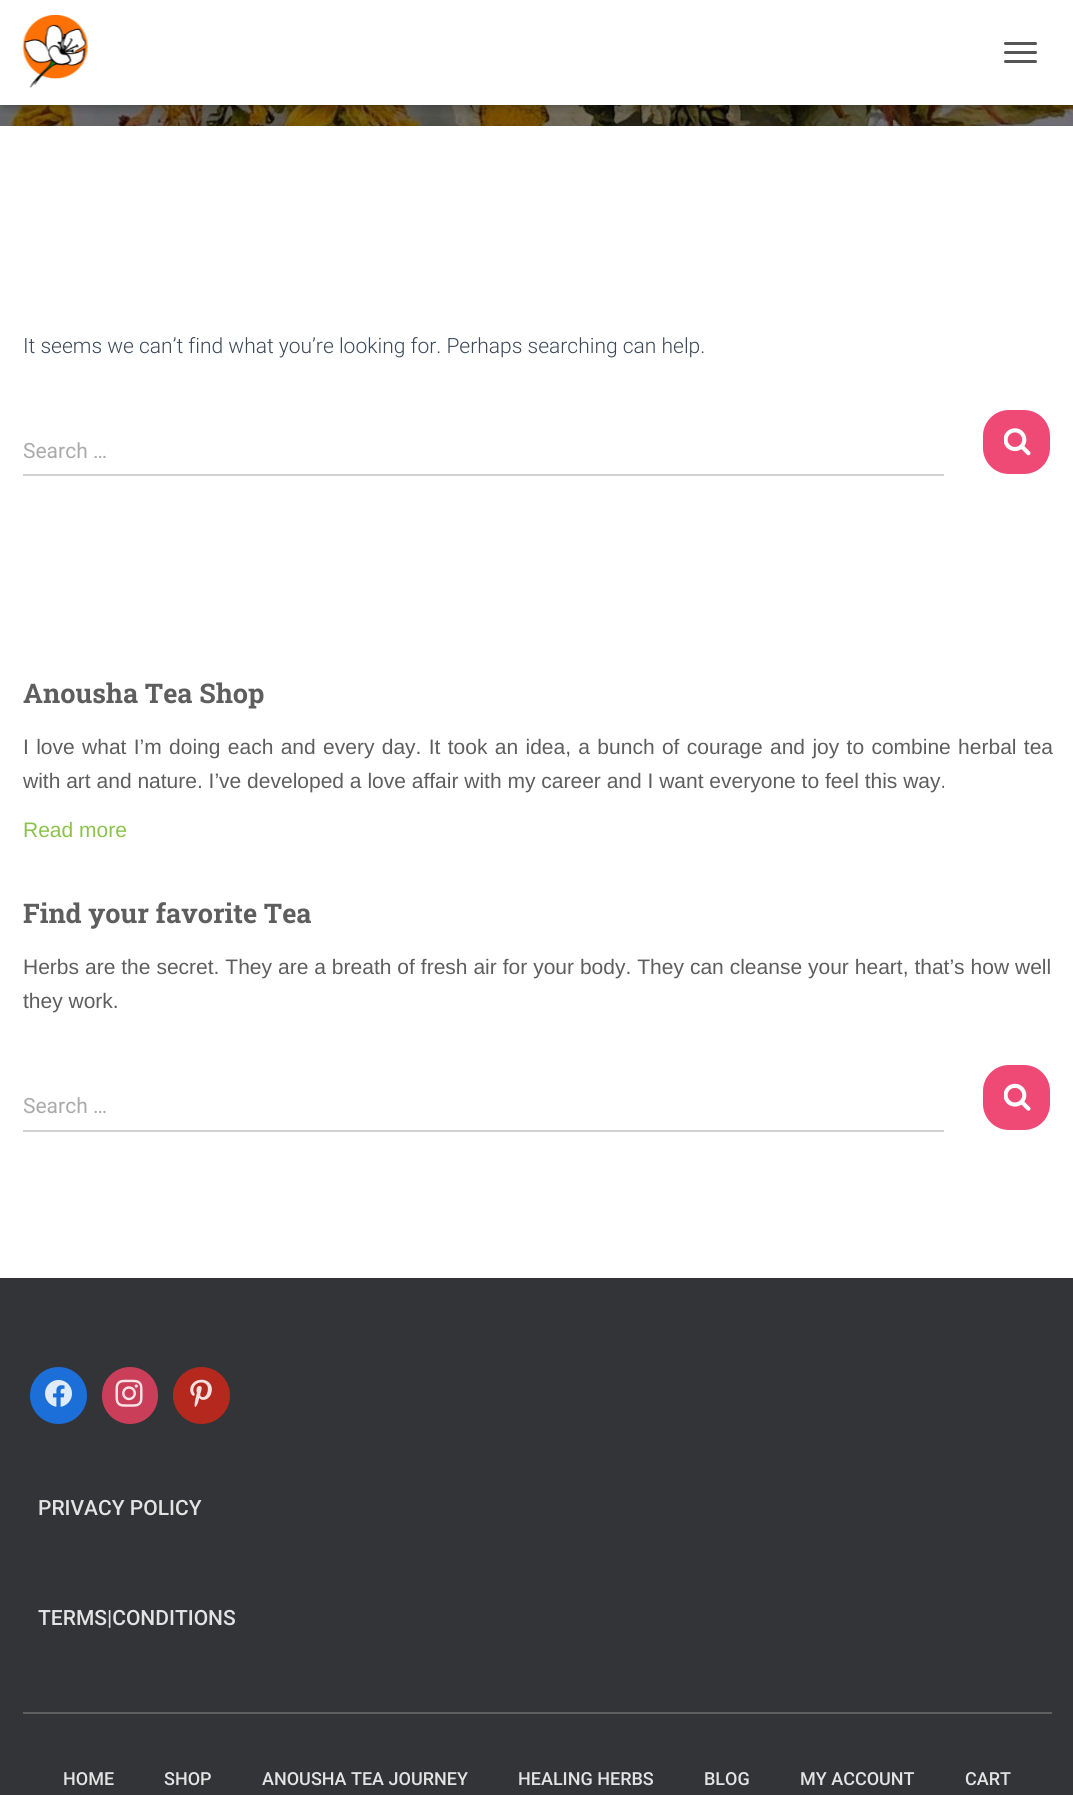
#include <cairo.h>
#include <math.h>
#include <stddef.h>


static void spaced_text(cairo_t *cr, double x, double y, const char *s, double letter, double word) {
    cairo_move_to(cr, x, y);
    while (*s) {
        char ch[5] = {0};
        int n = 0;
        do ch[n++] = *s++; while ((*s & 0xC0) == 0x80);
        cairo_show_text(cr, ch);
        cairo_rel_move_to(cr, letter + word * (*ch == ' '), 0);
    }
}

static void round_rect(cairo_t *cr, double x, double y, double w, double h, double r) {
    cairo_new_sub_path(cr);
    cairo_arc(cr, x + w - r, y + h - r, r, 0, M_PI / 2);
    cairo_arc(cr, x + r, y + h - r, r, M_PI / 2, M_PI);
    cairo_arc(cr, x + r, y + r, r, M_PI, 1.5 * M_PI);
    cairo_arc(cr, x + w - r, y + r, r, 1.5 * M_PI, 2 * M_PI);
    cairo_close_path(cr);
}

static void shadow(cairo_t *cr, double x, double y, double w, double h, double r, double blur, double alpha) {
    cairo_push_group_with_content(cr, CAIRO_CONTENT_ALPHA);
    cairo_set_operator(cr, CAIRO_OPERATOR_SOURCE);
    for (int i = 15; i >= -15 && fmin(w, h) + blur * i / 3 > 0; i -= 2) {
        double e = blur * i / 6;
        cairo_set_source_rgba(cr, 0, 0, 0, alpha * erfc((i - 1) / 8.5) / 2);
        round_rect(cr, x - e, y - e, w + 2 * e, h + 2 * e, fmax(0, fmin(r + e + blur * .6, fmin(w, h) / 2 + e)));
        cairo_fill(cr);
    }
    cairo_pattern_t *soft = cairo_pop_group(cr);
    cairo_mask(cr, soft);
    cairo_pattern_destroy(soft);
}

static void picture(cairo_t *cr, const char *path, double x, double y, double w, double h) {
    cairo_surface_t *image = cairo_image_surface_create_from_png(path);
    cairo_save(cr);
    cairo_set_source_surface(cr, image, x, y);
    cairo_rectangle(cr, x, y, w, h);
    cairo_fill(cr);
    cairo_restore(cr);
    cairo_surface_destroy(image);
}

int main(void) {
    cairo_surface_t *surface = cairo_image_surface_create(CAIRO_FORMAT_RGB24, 1073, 1795);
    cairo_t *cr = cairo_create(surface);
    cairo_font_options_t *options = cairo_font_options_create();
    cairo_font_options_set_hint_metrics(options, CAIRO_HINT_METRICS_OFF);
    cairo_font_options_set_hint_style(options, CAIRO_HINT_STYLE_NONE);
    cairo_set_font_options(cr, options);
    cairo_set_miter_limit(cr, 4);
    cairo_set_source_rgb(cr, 1, 1, 1);
    cairo_paint(cr);
    picture(cr, "img2.png", 0, 105, 1073, 21);
    cairo_set_source_rgb(cr, 0, 0, 0);
    shadow(cr, 3, 9, 1068, 99, 0, 4, 0.1);
    shadow(cr, -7, 128, 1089, 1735, 0, 22.5, 0.12);
    cairo_set_source_rgb(cr, 1, 1, 1);
    cairo_rectangle(cr, 0, 126, 1073, 1152);
    cairo_fill(cr);
    cairo_set_source_rgb(cr, 0, 0, 0);
    shadow(cr, 0, 2, 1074, 105, 0, 7.5, 0.12);
    shadow(cr, 9, 11, 1056, 87, 0, 7.5, 0.42);
    cairo_set_source_rgb(cr, 1, 1, 1);
    cairo_rectangle(cr, 0, 0, 1073, 105);
    cairo_fill(cr);
    picture(cr, "img1.png", 22, 15, 66, 73);
    cairo_set_source_rgb(cr, 0.333, 0.333, 0.333);
    round_rect(cr, 1004, 42, 33, 3, 1.5);
    cairo_fill(cr);
    round_rect(cr, 1004, 51, 33, 3, 1.5);
    cairo_fill(cr);
    round_rect(cr, 1004, 60, 33, 3, 1.5);
    cairo_fill(cr);
    cairo_select_font_face(cr, "Roboto Light", CAIRO_FONT_SLANT_NORMAL, CAIRO_FONT_WEIGHT_NORMAL);
    cairo_set_font_size(cr, 21);
    cairo_set_source_rgb(cr, 0.235, 0.282, 0.345);
    cairo_move_to(cr, 23, 353);
    cairo_show_text(cr, "It seems we can’t find what you’re looking for. Perhaps searching can help.");
    cairo_select_font_face(cr, "Roboto", CAIRO_FONT_SLANT_NORMAL, CAIRO_FONT_WEIGHT_NORMAL);
    cairo_set_source_rgb(cr, 0.667, 0.667, 0.667);
    cairo_move_to(cr, 23, 458);
    cairo_show_text(cr, "Search …");
    cairo_set_source_rgb(cr, 0.824, 0.824, 0.824);
    cairo_rectangle(cr, 23, 474, 921, 2);
    cairo_fill(cr);
    cairo_set_source_rgb(cr, 0.937, 0.29, 0.459);
    round_rect(cr, 983, 410, 67, 64, 26);
    cairo_fill(cr);
    picture(cr, "img3.png", 1004, 428, 27, 28);
    cairo_select_font_face(cr, "Roboto Slab", CAIRO_FONT_SLANT_NORMAL, CAIRO_FONT_WEIGHT_BOLD);
    cairo_set_font_size(cr, 27);
    cairo_set_source_rgb(cr, 0.369, 0.369, 0.369);
    cairo_move_to(cr, 23, 703);
    cairo_show_text(cr, "Anousha Tea Shop");
    cairo_select_font_face(cr, "Liberation Sans", CAIRO_FONT_SLANT_NORMAL, CAIRO_FONT_WEIGHT_NORMAL);
    cairo_set_font_size(cr, 21);
    spaced_text(cr, 23, 754, "I love what I’m doing each and every day. It took an idea, a bunch of courage and joy to combine herbal tea", 0, 1.5);
    cairo_move_to(cr, 23, 788);
    cairo_show_text(cr, "with art and nature. I’ve developed a love affair with my career and I want everyone to feel this way.");
    cairo_set_source_rgb(cr, 0.545, 0.765, 0.29);
    cairo_move_to(cr, 23, 837);
    cairo_show_text(cr, "Read more");
    cairo_select_font_face(cr, "Roboto Slab", CAIRO_FONT_SLANT_NORMAL, CAIRO_FONT_WEIGHT_BOLD);
    cairo_set_font_size(cr, 27);
    cairo_set_source_rgb(cr, 0.369, 0.369, 0.369);
    cairo_move_to(cr, 23, 923);
    cairo_show_text(cr, "Find your favorite Tea");
    cairo_select_font_face(cr, "Liberation Sans", CAIRO_FONT_SLANT_NORMAL, CAIRO_FONT_WEIGHT_NORMAL);
    cairo_set_font_size(cr, 21);
    spaced_text(cr, 23, 974, "Herbs are the secret. They are a breath of fresh air for your body. They can cleanse your heart, that’s how well", 0, 0.1);
    cairo_move_to(cr, 23, 1008);
    cairo_show_text(cr, "they work.");
    cairo_select_font_face(cr, "Roboto", CAIRO_FONT_SLANT_NORMAL, CAIRO_FONT_WEIGHT_NORMAL);
    cairo_set_source_rgb(cr, 0.667, 0.667, 0.667);
    cairo_move_to(cr, 23, 1113);
    cairo_show_text(cr, "Search …");
    cairo_set_source_rgb(cr, 0.824, 0.824, 0.824);
    cairo_rectangle(cr, 23, 1130, 921, 2);
    cairo_fill(cr);
    cairo_set_source_rgb(cr, 0.937, 0.29, 0.459);
    round_rect(cr, 983, 1065, 67, 65, 26);
    cairo_fill(cr);
    picture(cr, "img4.png", 1004, 1083, 27, 28);
    cairo_set_source_rgb(cr, 0.196, 0.204, 0.216);
    cairo_rectangle(cr, 0, 1278, 1073, 517);
    cairo_fill(cr);
    cairo_set_source_rgb(cr, 0.11, 0.431, 0.847);
    cairo_arc(cr, 58.5, 1395.5, 28.5, 0, 2 * M_PI);
    cairo_fill(cr);
    picture(cr, "img5.png", 45, 1380, 27, 27);
    cairo_set_source_rgb(cr, 0.796, 0.243, 0.349);
    round_rect(cr, 102, 1367, 56, 57, 28);
    cairo_fill(cr);
    picture(cr, "img6.png", 115, 1379, 28, 28);
    cairo_set_source_rgb(cr, 0.706, 0.157, 0.114);
    cairo_arc(cr, 201.5, 1395.5, 28.5, 0, 2 * M_PI);
    cairo_fill(cr);
    picture(cr, "img7.png", 190, 1379, 22, 28);
    cairo_select_font_face(cr, "Roboto Medium", CAIRO_FONT_SLANT_NORMAL, CAIRO_FONT_WEIGHT_NORMAL);
    cairo_set_source_rgb(cr, 0.886, 0.89, 0.89);
    cairo_move_to(cr, 38, 1515);
    cairo_show_text(cr, "PRIVACY POLICY");
    cairo_move_to(cr, 38, 1625);
    cairo_show_text(cr, "TERMS|CONDITIONS");
    cairo_set_source_rgb(cr, 0.369, 0.369, 0.369);
    cairo_rectangle(cr, 23, 1712, 1029, 2);
    cairo_fill(cr);
    cairo_set_font_size(cr, 18);
    cairo_set_source_rgb(cr, 0.886, 0.89, 0.89);
    cairo_move_to(cr, 63, 1785);
    cairo_show_text(cr, "HOME");
    cairo_move_to(cr, 164, 1785);
    cairo_show_text(cr, "SHOP");
    cairo_move_to(cr, 262, 1785);
    cairo_show_text(cr, "ANOUSHA TEA JOURNEY");
    cairo_move_to(cr, 518, 1785);
    cairo_show_text(cr, "HEALING HERBS");
    cairo_move_to(cr, 704, 1785);
    cairo_show_text(cr, "BLOG");
    cairo_move_to(cr, 800, 1785);
    cairo_show_text(cr, "MY ACCOUNT");
    cairo_move_to(cr, 965, 1785);
    cairo_show_text(cr, "CART");
    cairo_surface_write_to_png(surface, "page.png");
    cairo_font_options_destroy(options);
    cairo_destroy(cr);
    cairo_surface_destroy(surface);
    return 0;
}
